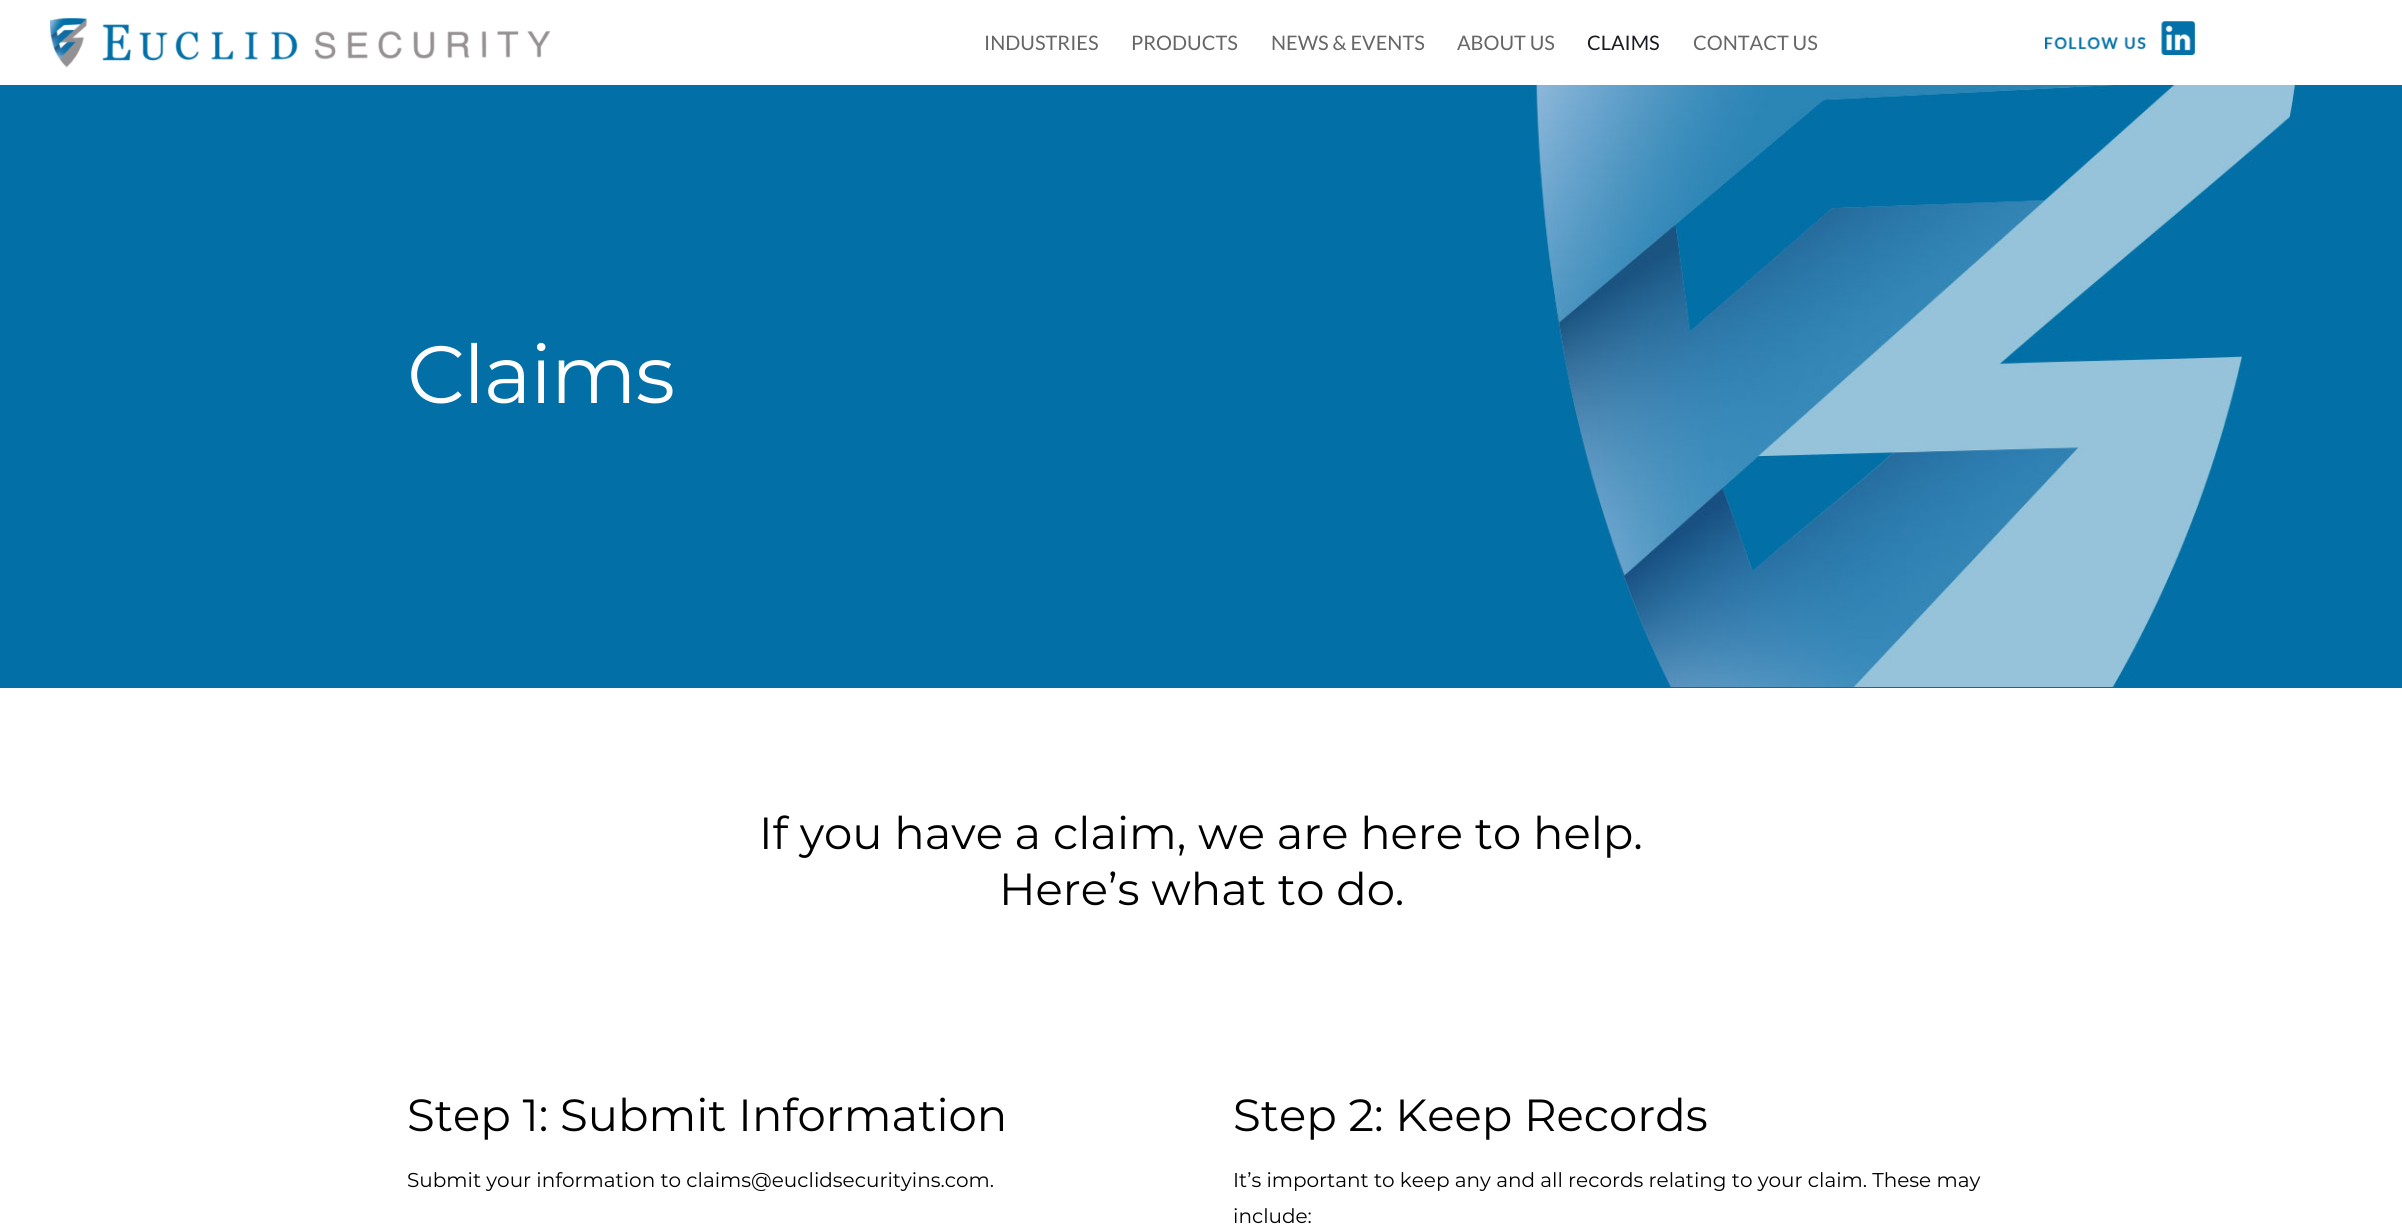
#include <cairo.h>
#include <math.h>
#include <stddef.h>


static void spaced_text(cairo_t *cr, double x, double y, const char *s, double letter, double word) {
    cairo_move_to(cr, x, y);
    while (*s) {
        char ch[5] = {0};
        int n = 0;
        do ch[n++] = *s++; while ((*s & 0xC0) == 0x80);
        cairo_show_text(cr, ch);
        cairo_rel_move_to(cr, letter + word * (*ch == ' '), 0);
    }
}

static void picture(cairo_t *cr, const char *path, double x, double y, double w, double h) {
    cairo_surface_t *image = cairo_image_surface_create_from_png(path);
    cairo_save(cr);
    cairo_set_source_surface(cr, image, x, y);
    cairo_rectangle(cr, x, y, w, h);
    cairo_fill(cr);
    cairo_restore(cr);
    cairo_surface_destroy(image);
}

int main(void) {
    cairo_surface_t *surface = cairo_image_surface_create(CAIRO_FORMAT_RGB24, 2402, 1229);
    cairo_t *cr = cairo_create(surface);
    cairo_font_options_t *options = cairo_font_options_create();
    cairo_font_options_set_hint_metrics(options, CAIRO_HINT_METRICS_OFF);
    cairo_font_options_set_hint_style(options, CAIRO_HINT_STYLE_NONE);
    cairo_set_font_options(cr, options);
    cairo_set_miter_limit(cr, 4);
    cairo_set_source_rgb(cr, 1, 1, 1);
    cairo_paint(cr);
    picture(cr, "img1.png", 50, 18, 500, 50);
    cairo_select_font_face(cr, "Lato", CAIRO_FONT_SLANT_NORMAL, CAIRO_FONT_WEIGHT_NORMAL);
    cairo_set_font_size(cr, 20);
    cairo_set_source_rgb(cr, 0.4, 0.4, 0.4);
    cairo_move_to(cr, 984, 50);
    cairo_show_text(cr, "INDUSTRIES");
    cairo_move_to(cr, 1131, 50);
    cairo_show_text(cr, "PRODUCTS");
    cairo_move_to(cr, 1271, 50);
    cairo_show_text(cr, "NEWS & EVENTS");
    cairo_move_to(cr, 1457, 50);
    cairo_show_text(cr, "ABOUT US");
    cairo_set_source_rgb(cr, 0.094, 0.106, 0.125);
    cairo_move_to(cr, 1587, 50);
    cairo_show_text(cr, "CLAIMS");
    cairo_set_source_rgb(cr, 0.4, 0.4, 0.4);
    cairo_move_to(cr, 1693, 50);
    cairo_show_text(cr, "CONTACT US");
    picture(cr, "img2.png", 2045, 21, 150, 34);
    cairo_set_source_rgb(cr, 0.008, 0.439, 0.651);
    cairo_rectangle(cr, 0, 687, 2402, 1);
    cairo_fill(cr);
    picture(cr, "img3.png", 0, 85, 2402, 602);
    cairo_select_font_face(cr, "Montserrat", CAIRO_FONT_SLANT_NORMAL, CAIRO_FONT_WEIGHT_NORMAL);
    cairo_set_font_size(cr, 81);
    cairo_set_source_rgb(cr, 1, 1, 1);
    spaced_text(cr, 407, 403, "Claims", -1.25, 0);
    cairo_set_font_size(cr, 45);
    cairo_set_source_rgb(cr, 0, 0, 0);
    cairo_move_to(cr, 759, 849);
    cairo_show_text(cr, "If you have a claim, we are here to help.");
    cairo_move_to(cr, 999, 905);
    cairo_show_text(cr, "Here’s what to do.");
    cairo_move_to(cr, 407, 1131);
    cairo_show_text(cr, "Step 1: Submit Information");
    cairo_set_font_size(cr, 20);
    cairo_move_to(cr, 407, 1187);
    cairo_show_text(cr, "Submit your information to claims@euclidsecurityins.com.");
    cairo_set_font_size(cr, 45);
    cairo_move_to(cr, 1233, 1131);
    cairo_show_text(cr, "Step 2: Keep Records");
    cairo_set_font_size(cr, 20);
    cairo_move_to(cr, 1233, 1187);
    cairo_show_text(cr, "It’s important to keep any and all records relating to your claim. These may");
    cairo_move_to(cr, 1233, 1223);
    cairo_show_text(cr, "include:");
    cairo_surface_write_to_png(surface, "page.png");
    cairo_font_options_destroy(options);
    cairo_destroy(cr);
    cairo_surface_destroy(surface);
    return 0;
}
